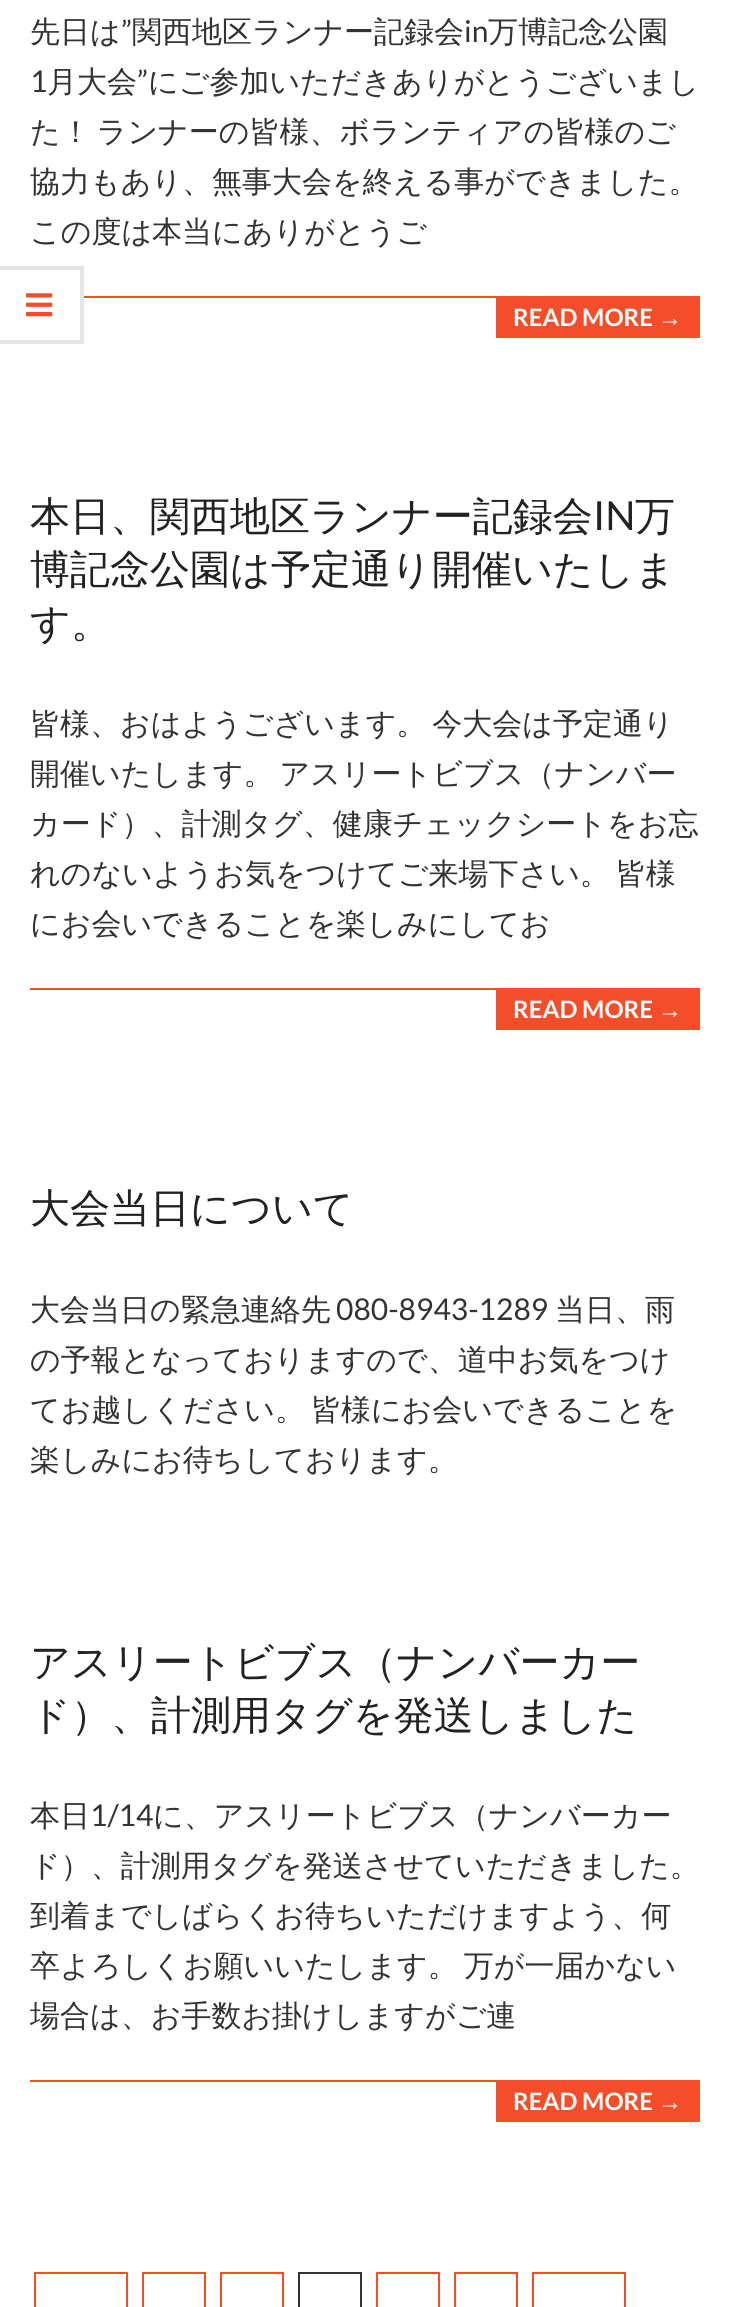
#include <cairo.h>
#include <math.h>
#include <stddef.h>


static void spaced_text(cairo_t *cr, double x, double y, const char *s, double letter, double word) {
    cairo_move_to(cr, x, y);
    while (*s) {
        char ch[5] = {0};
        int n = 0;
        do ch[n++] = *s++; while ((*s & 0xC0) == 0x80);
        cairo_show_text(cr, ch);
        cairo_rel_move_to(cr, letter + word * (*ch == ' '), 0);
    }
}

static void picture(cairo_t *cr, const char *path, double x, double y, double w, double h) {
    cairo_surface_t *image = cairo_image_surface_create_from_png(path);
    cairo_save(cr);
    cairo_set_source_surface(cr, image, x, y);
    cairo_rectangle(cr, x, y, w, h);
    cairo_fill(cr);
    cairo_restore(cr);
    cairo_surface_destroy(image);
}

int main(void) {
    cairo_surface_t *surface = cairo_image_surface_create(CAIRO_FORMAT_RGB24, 729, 2307);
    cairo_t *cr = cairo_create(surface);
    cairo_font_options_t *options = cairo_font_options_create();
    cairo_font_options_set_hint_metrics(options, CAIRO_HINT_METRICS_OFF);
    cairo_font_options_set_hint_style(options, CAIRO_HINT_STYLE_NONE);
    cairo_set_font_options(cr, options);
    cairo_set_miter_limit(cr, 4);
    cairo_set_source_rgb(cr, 1, 1, 1);
    cairo_paint(cr);
    cairo_select_font_face(cr, "WenQuanYi Zen Hei Medium", CAIRO_FONT_SLANT_NORMAL, CAIRO_FONT_WEIGHT_NORMAL);
    cairo_set_font_size(cr, 30);
    cairo_set_source_rgb(cr, 0.2, 0.2, 0.2);
    cairo_move_to(cr, 30, 42);
    cairo_show_text(cr, "先日は");
    cairo_select_font_face(cr, "Lato", CAIRO_FONT_SLANT_NORMAL, CAIRO_FONT_WEIGHT_NORMAL);
    cairo_move_to(cr, 121, 42);
    cairo_show_text(cr, "”");
    cairo_select_font_face(cr, "WenQuanYi Zen Hei Medium", CAIRO_FONT_SLANT_NORMAL, CAIRO_FONT_WEIGHT_NORMAL);
    cairo_move_to(cr, 132, 42);
    cairo_show_text(cr, "関西地区ランナー記録会");
    cairo_select_font_face(cr, "Lato", CAIRO_FONT_SLANT_NORMAL, CAIRO_FONT_WEIGHT_NORMAL);
    cairo_move_to(cr, 464, 42);
    cairo_show_text(cr, "in");
    cairo_select_font_face(cr, "WenQuanYi Zen Hei Medium", CAIRO_FONT_SLANT_NORMAL, CAIRO_FONT_WEIGHT_NORMAL);
    cairo_move_to(cr, 488, 42);
    cairo_show_text(cr, "万博記念公園");
    cairo_select_font_face(cr, "Lato", CAIRO_FONT_SLANT_NORMAL, CAIRO_FONT_WEIGHT_NORMAL);
    cairo_move_to(cr, 30, 92);
    cairo_show_text(cr, "1");
    cairo_select_font_face(cr, "WenQuanYi Zen Hei Medium", CAIRO_FONT_SLANT_NORMAL, CAIRO_FONT_WEIGHT_NORMAL);
    cairo_move_to(cr, 47, 92);
    cairo_show_text(cr, "月大会");
    cairo_select_font_face(cr, "Lato", CAIRO_FONT_SLANT_NORMAL, CAIRO_FONT_WEIGHT_NORMAL);
    cairo_move_to(cr, 137, 92);
    cairo_show_text(cr, "”");
    cairo_select_font_face(cr, "WenQuanYi Zen Hei Medium", CAIRO_FONT_SLANT_NORMAL, CAIRO_FONT_WEIGHT_NORMAL);
    cairo_move_to(cr, 148, 92);
    cairo_show_text(cr, "にご参加いただきありがとうございまし");
    spaced_text(cr, 30, 142, "た！ ランナーの皆様、ボランティアの皆様のご", 0, -3);
    cairo_move_to(cr, 30, 192);
    cairo_show_text(cr, "協力もあり、無事大会を終える事ができました。");
    cairo_move_to(cr, 30, 242);
    cairo_show_text(cr, "この度は本当にありがとうご");
    cairo_set_source_rgb(cr, 0.953, 0.306, 0.161);
    cairo_rectangle(cr, 84, 296, 616, 2);
    cairo_fill(cr);
    cairo_rectangle(cr, 496, 298, 204, 40);
    cairo_fill(cr);
    cairo_select_font_face(cr, "Lato", CAIRO_FONT_SLANT_NORMAL, CAIRO_FONT_WEIGHT_BOLD);
    cairo_set_font_size(cr, 24);
    cairo_set_source_rgb(cr, 1, 1, 1);
    cairo_move_to(cr, 513, 326);
    cairo_show_text(cr, "READ MORE");
    cairo_select_font_face(cr, "Liberation Sans", CAIRO_FONT_SLANT_NORMAL, CAIRO_FONT_WEIGHT_BOLD);
    cairo_move_to(cr, 658, 326);
    cairo_show_text(cr, "→");
    cairo_select_font_face(cr, "WenQuanYi Zen Hei Medium", CAIRO_FONT_SLANT_NORMAL, CAIRO_FONT_WEIGHT_NORMAL);
    cairo_set_font_size(cr, 40);
    cairo_set_source_rgb(cr, 0.133, 0.133, 0.133);
    cairo_move_to(cr, 30, 530);
    cairo_show_text(cr, "本日、関西地区ランナー記録会");
    cairo_select_font_face(cr, "Lato", CAIRO_FONT_SLANT_NORMAL, CAIRO_FONT_WEIGHT_NORMAL);
    cairo_move_to(cr, 593, 530);
    cairo_show_text(cr, "IN");
    cairo_select_font_face(cr, "WenQuanYi Zen Hei Medium", CAIRO_FONT_SLANT_NORMAL, CAIRO_FONT_WEIGHT_NORMAL);
    cairo_move_to(cr, 635, 530);
    cairo_show_text(cr, "万");
    cairo_move_to(cr, 30, 583);
    cairo_show_text(cr, "博記念公園は予定通り開催いたしま");
    cairo_move_to(cr, 30, 637);
    cairo_show_text(cr, "す。");
    cairo_set_font_size(cr, 30);
    cairo_set_source_rgb(cr, 0.2, 0.2, 0.2);
    spaced_text(cr, 30, 734, "皆様、おはようございます。 今大会は予定通り", 0, -3);
    spaced_text(cr, 30, 784, "開催いたします。 アスリートビブス（ナンバー", 0, -3);
    cairo_move_to(cr, 30, 834);
    cairo_show_text(cr, "カード）、計測タグ、健康チェックシートをお忘");
    spaced_text(cr, 30, 884, "れのないようお気をつけてご来場下さい。 皆様", 0, -3);
    cairo_move_to(cr, 30, 934);
    cairo_show_text(cr, "にお会いできることを楽しみにしてお");
    cairo_set_source_rgb(cr, 0.953, 0.306, 0.161);
    cairo_rectangle(cr, 30, 988, 670, 2);
    cairo_fill(cr);
    cairo_rectangle(cr, 496, 990, 204, 40);
    cairo_fill(cr);
    cairo_select_font_face(cr, "Lato", CAIRO_FONT_SLANT_NORMAL, CAIRO_FONT_WEIGHT_BOLD);
    cairo_set_font_size(cr, 24);
    cairo_set_source_rgb(cr, 1, 1, 1);
    cairo_move_to(cr, 513, 1018);
    cairo_show_text(cr, "READ MORE");
    cairo_select_font_face(cr, "Liberation Sans", CAIRO_FONT_SLANT_NORMAL, CAIRO_FONT_WEIGHT_BOLD);
    cairo_move_to(cr, 658, 1018);
    cairo_show_text(cr, "→");
    cairo_select_font_face(cr, "WenQuanYi Zen Hei Medium", CAIRO_FONT_SLANT_NORMAL, CAIRO_FONT_WEIGHT_NORMAL);
    cairo_set_font_size(cr, 40);
    cairo_set_source_rgb(cr, 0.133, 0.133, 0.133);
    cairo_move_to(cr, 30, 1222);
    cairo_show_text(cr, "大会当日について");
    cairo_set_font_size(cr, 30);
    cairo_set_source_rgb(cr, 0.2, 0.2, 0.2);
    cairo_move_to(cr, 30, 1320);
    cairo_show_text(cr, "大会当日の緊急連絡先");
    cairo_select_font_face(cr, "Lato", CAIRO_FONT_SLANT_NORMAL, CAIRO_FONT_WEIGHT_NORMAL);
    cairo_move_to(cr, 336, 1320);
    cairo_show_text(cr, "080-8943-1289");
    cairo_select_font_face(cr, "WenQuanYi Zen Hei Medium", CAIRO_FONT_SLANT_NORMAL, CAIRO_FONT_WEIGHT_NORMAL);
    cairo_move_to(cr, 555, 1320);
    cairo_show_text(cr, "当日、雨");
    cairo_move_to(cr, 30, 1370);
    cairo_show_text(cr, "の予報となっておりますので、道中お気をつけ");
    spaced_text(cr, 30, 1420, "てお越しください。 皆様にお会いできることを", 0, -3);
    cairo_move_to(cr, 30, 1470);
    cairo_show_text(cr, "楽しみにお待ちしております。");
    cairo_set_font_size(cr, 40);
    cairo_set_source_rgb(cr, 0.133, 0.133, 0.133);
    cairo_move_to(cr, 30, 1676);
    cairo_show_text(cr, "アスリートビブス（ナンバーカー");
    cairo_move_to(cr, 30, 1729);
    cairo_show_text(cr, "ド）、計測用タグを発送しました");
    cairo_set_font_size(cr, 30);
    cairo_set_source_rgb(cr, 0.2, 0.2, 0.2);
    cairo_move_to(cr, 30, 1826);
    cairo_show_text(cr, "本日");
    cairo_select_font_face(cr, "Lato", CAIRO_FONT_SLANT_NORMAL, CAIRO_FONT_WEIGHT_NORMAL);
    cairo_move_to(cr, 90, 1826);
    cairo_show_text(cr, "1/14");
    cairo_select_font_face(cr, "WenQuanYi Zen Hei Medium", CAIRO_FONT_SLANT_NORMAL, CAIRO_FONT_WEIGHT_NORMAL);
    cairo_move_to(cr, 153, 1826);
    cairo_show_text(cr, "に、アスリートビブス（ナンバーカー");
    cairo_move_to(cr, 30, 1876);
    cairo_show_text(cr, "ド）、計測用タグを発送させていただきました。");
    cairo_move_to(cr, 30, 1926);
    cairo_show_text(cr, "到着までしばらくお待ちいただけますよう、何");
    spaced_text(cr, 30, 1976, "卒よろしくお願いいたします。 万が一届かない", 0, -3);
    cairo_move_to(cr, 30, 2026);
    cairo_show_text(cr, "場合は、お手数お掛けしますがご連");
    cairo_set_source_rgb(cr, 0.953, 0.306, 0.161);
    cairo_rectangle(cr, 30, 2080, 670, 2);
    cairo_fill(cr);
    cairo_rectangle(cr, 496, 2082, 204, 40);
    cairo_fill(cr);
    cairo_select_font_face(cr, "Lato", CAIRO_FONT_SLANT_NORMAL, CAIRO_FONT_WEIGHT_BOLD);
    cairo_set_font_size(cr, 24);
    cairo_set_source_rgb(cr, 1, 1, 1);
    cairo_move_to(cr, 513, 2110);
    cairo_show_text(cr, "READ MORE");
    cairo_select_font_face(cr, "Liberation Sans", CAIRO_FONT_SLANT_NORMAL, CAIRO_FONT_WEIGHT_BOLD);
    cairo_move_to(cr, 658, 2110);
    cairo_show_text(cr, "→");
    cairo_rectangle(cr, 35, 2273, 92, 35);
    cairo_set_source_rgb(cr, 0.953, 0.306, 0.161);
    cairo_stroke(cr);
    cairo_rectangle(cr, 143, 2273, 62, 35);
    cairo_stroke(cr);
    cairo_rectangle(cr, 221, 2273, 62, 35);
    cairo_stroke(cr);
    cairo_rectangle(cr, 299, 2273, 62, 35);
    cairo_set_source_rgb(cr, 0.2, 0.2, 0.2);
    cairo_stroke(cr);
    cairo_rectangle(cr, 377, 2273, 62, 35);
    cairo_set_source_rgb(cr, 0.953, 0.306, 0.161);
    cairo_stroke(cr);
    cairo_rectangle(cr, 455, 2273, 62, 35);
    cairo_stroke(cr);
    cairo_rectangle(cr, 533, 2273, 92, 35);
    cairo_stroke(cr);
    cairo_set_source_rgb(cr, 0.902, 0.902, 0.902);
    cairo_new_path(cr);
    cairo_move_to(cr, 0, 266);
    cairo_line_to(cr, 84, 266);
    cairo_line_to(cr, 80, 270);
    cairo_line_to(cr, 0, 270);
    cairo_close_path(cr);
    cairo_fill(cr);
    cairo_set_source_rgba(cr, 0, 0, 0, 0.1);
    cairo_new_path(cr);
    cairo_move_to(cr, 84, 266);
    cairo_line_to(cr, 84, 344);
    cairo_line_to(cr, 80, 340);
    cairo_line_to(cr, 80, 270);
    cairo_close_path(cr);
    cairo_fill(cr);
    cairo_new_path(cr);
    cairo_move_to(cr, 84, 344);
    cairo_line_to(cr, 0, 344);
    cairo_line_to(cr, 0, 340);
    cairo_line_to(cr, 80, 340);
    cairo_close_path(cr);
    cairo_fill(cr);
    picture(cr, "img1.png", 26, 293, 27, 24);
    cairo_surface_write_to_png(surface, "page.png");
    cairo_font_options_destroy(options);
    cairo_destroy(cr);
    cairo_surface_destroy(surface);
    return 0;
}
